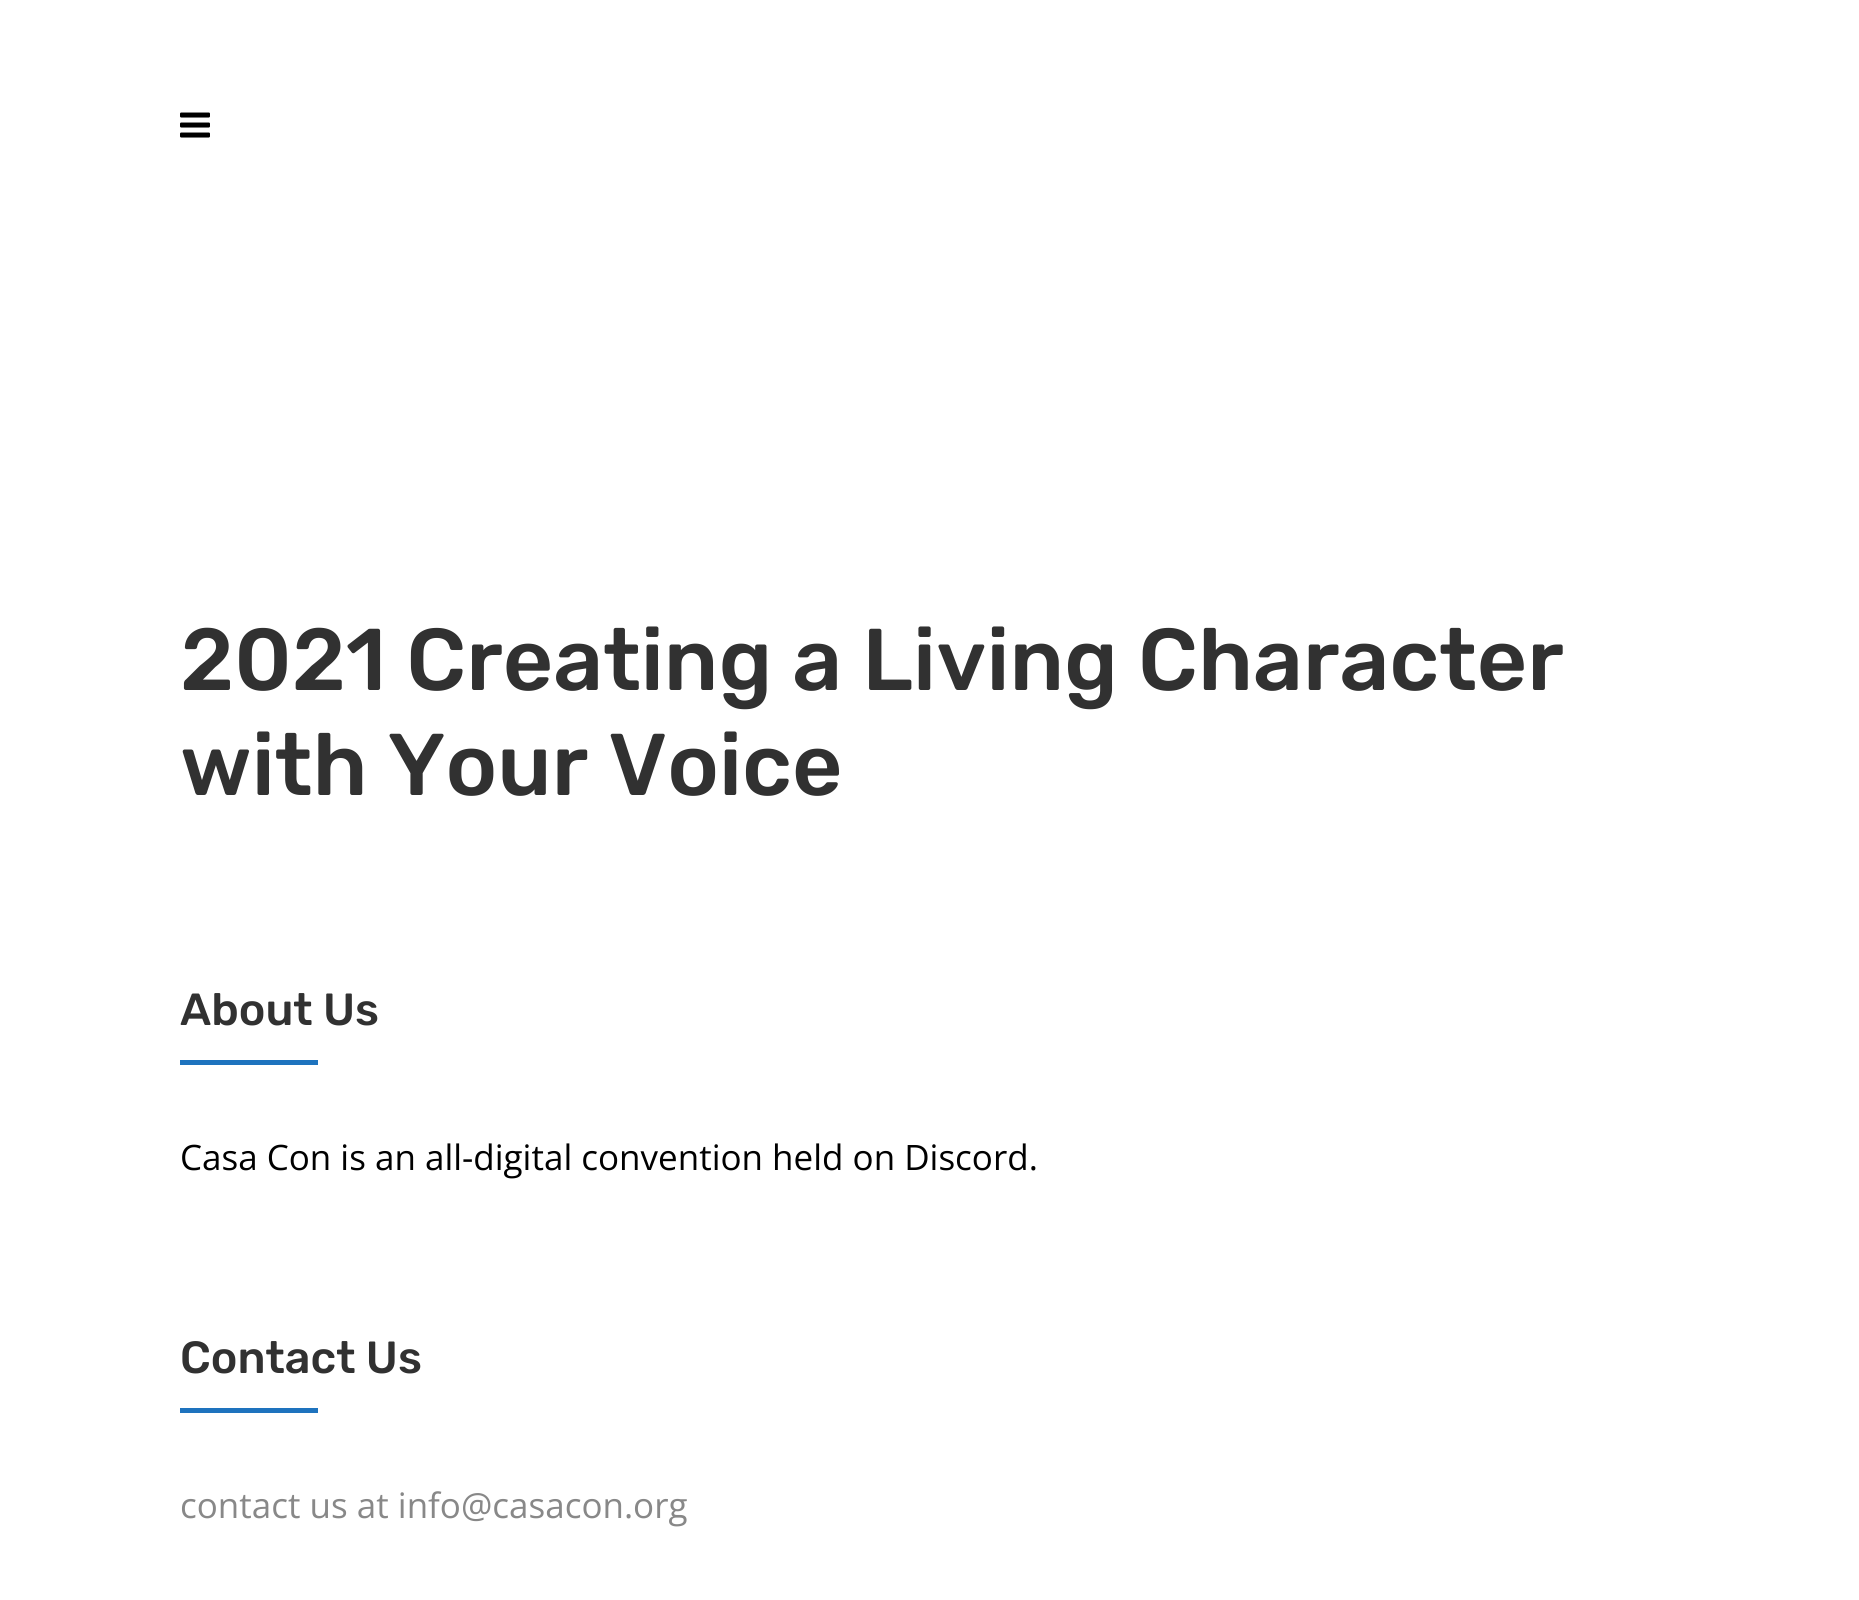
#include <cairo.h>
#include <math.h>
#include <stddef.h>


static void picture(cairo_t *cr, const char *path, double x, double y, double w, double h) {
    cairo_surface_t *image = cairo_image_surface_create_from_png(path);
    cairo_save(cr);
    cairo_set_source_surface(cr, image, x, y);
    cairo_rectangle(cr, x, y, w, h);
    cairo_fill(cr);
    cairo_restore(cr);
    cairo_surface_destroy(image);
}

int main(void) {
    cairo_surface_t *surface = cairo_image_surface_create(CAIRO_FORMAT_RGB24, 1859, 1600);
    cairo_t *cr = cairo_create(surface);
    cairo_font_options_t *options = cairo_font_options_create();
    cairo_font_options_set_hint_metrics(options, CAIRO_HINT_METRICS_OFF);
    cairo_font_options_set_hint_style(options, CAIRO_HINT_STYLE_NONE);
    cairo_set_font_options(cr, options);
    cairo_set_miter_limit(cr, 4);
    cairo_set_source_rgb(cr, 1, 1, 1);
    cairo_paint(cr);
    picture(cr, "img1.png", 180, 112, 30, 26);
    cairo_select_font_face(cr, "Rubik Medium", CAIRO_FONT_SLANT_NORMAL, CAIRO_FONT_WEIGHT_NORMAL);
    cairo_set_font_size(cr, 87.5);
    cairo_set_source_rgb(cr, 0.192, 0.192, 0.192);
    cairo_move_to(cr, 180, 690);
    cairo_show_text(cr, "2021 Creating a Living Character");
    cairo_move_to(cr, 180, 795);
    cairo_show_text(cr, "with Your Voice");
    cairo_set_font_size(cr, 45);
    cairo_move_to(cr, 180, 1025);
    cairo_show_text(cr, "About Us");
    cairo_set_source_rgb(cr, 0.118, 0.451, 0.745);
    cairo_rectangle(cr, 180, 1060, 138, 5);
    cairo_fill(cr);
    cairo_select_font_face(cr, "Open Sans", CAIRO_FONT_SLANT_NORMAL, CAIRO_FONT_WEIGHT_NORMAL);
    cairo_set_font_size(cr, 35);
    cairo_set_source_rgb(cr, 0, 0, 0);
    cairo_move_to(cr, 180, 1170);
    cairo_show_text(cr, "Casa Con is an all-digital convention held on Discord.");
    cairo_select_font_face(cr, "Rubik Medium", CAIRO_FONT_SLANT_NORMAL, CAIRO_FONT_WEIGHT_NORMAL);
    cairo_set_font_size(cr, 45);
    cairo_set_source_rgb(cr, 0.192, 0.192, 0.192);
    cairo_move_to(cr, 180, 1373);
    cairo_show_text(cr, "Contact Us");
    cairo_set_source_rgb(cr, 0.118, 0.451, 0.745);
    cairo_rectangle(cr, 180, 1408, 138, 5);
    cairo_fill(cr);
    cairo_select_font_face(cr, "Open Sans", CAIRO_FONT_SLANT_NORMAL, CAIRO_FONT_WEIGHT_NORMAL);
    cairo_set_font_size(cr, 35);
    cairo_set_source_rgb(cr, 0.533, 0.533, 0.533);
    cairo_move_to(cr, 180, 1518);
    cairo_show_text(cr, "contact us at info@casacon.org");
    cairo_surface_write_to_png(surface, "page.png");
    cairo_font_options_destroy(options);
    cairo_destroy(cr);
    cairo_surface_destroy(surface);
    return 0;
}
